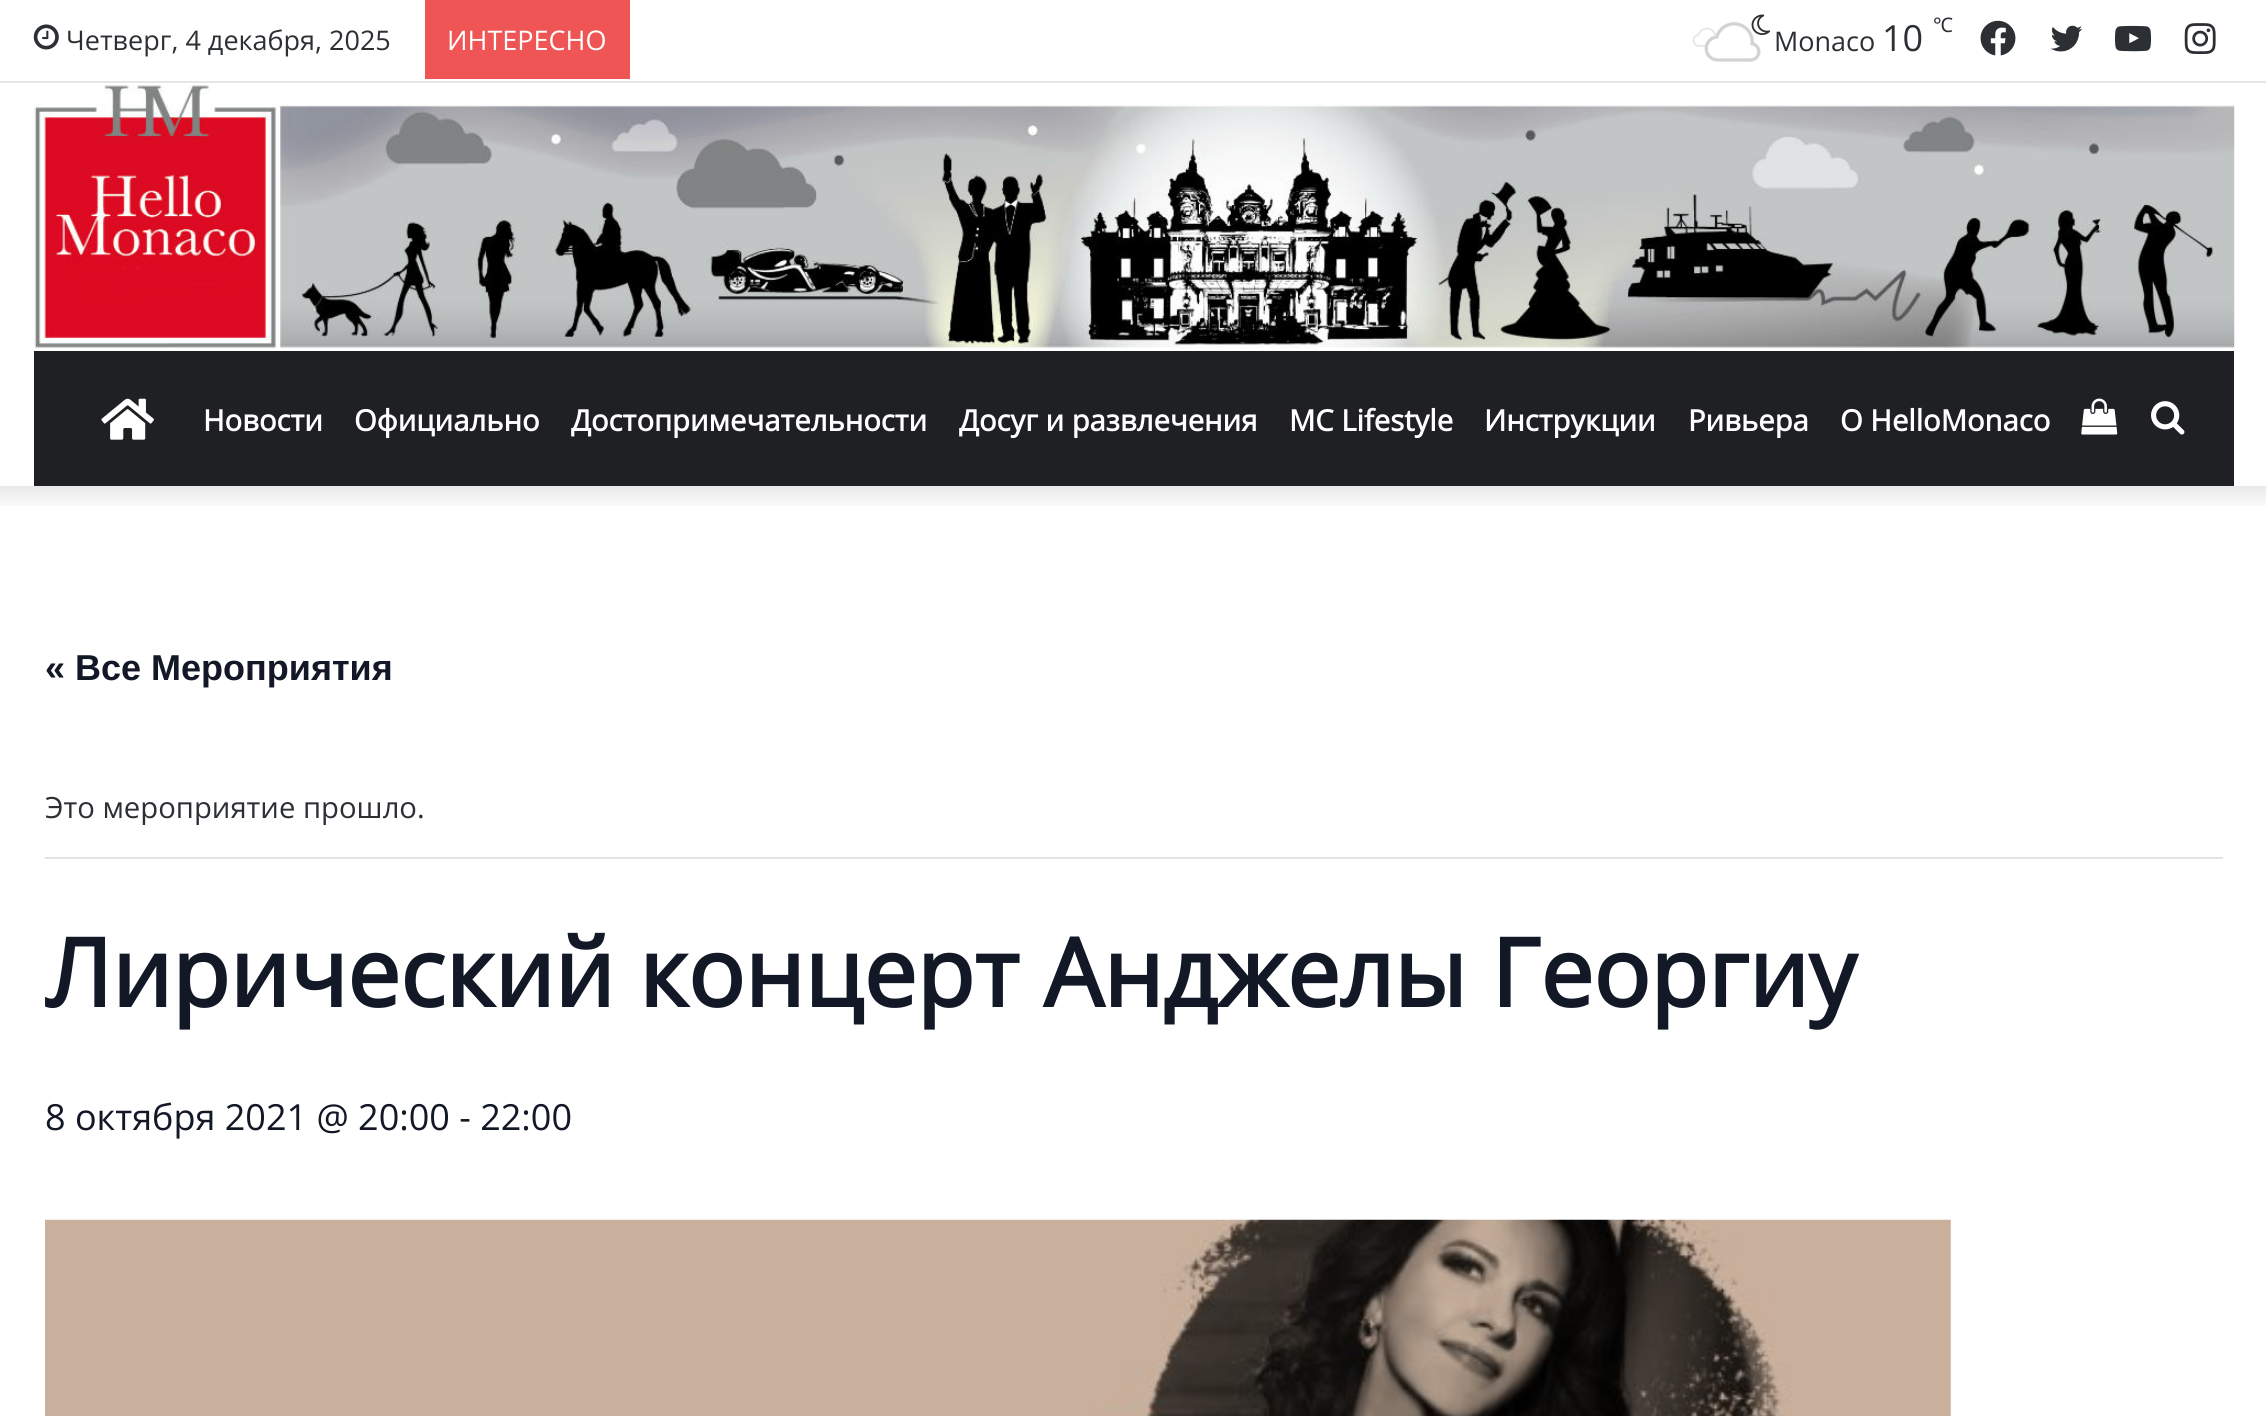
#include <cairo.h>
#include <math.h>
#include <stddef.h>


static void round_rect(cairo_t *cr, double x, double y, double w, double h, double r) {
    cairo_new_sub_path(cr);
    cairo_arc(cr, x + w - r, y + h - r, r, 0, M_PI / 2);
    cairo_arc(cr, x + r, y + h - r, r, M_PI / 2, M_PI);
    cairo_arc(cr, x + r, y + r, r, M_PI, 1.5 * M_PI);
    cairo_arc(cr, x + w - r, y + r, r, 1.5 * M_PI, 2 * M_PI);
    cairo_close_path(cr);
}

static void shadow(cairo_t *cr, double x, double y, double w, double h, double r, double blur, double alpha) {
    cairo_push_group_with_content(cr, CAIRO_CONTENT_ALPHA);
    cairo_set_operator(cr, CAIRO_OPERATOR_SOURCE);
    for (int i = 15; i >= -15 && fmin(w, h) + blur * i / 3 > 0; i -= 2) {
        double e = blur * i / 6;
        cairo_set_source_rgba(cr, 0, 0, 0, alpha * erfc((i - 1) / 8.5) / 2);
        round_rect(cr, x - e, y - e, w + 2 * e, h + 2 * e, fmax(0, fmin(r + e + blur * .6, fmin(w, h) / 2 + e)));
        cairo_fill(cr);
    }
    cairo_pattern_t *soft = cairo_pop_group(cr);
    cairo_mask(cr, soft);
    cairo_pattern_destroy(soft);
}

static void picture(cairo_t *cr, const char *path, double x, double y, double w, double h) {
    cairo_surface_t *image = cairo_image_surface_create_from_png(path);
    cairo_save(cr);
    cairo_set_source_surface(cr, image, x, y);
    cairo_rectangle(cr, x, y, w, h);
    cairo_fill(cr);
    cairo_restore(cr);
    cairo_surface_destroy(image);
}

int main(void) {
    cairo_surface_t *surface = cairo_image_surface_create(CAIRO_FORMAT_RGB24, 2266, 1416);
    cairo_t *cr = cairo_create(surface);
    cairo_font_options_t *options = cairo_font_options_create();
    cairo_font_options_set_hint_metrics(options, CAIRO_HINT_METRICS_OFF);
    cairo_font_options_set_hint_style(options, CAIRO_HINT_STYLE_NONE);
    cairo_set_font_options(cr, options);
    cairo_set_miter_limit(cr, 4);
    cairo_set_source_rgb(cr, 1, 1, 1);
    cairo_paint(cr);
    cairo_save(cr);
    cairo_rectangle(cr, 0, 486, 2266, 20);
    cairo_clip(cr);
    cairo_set_source_rgb(cr, 0, 0, 0);
    shadow(cr, -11, -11, 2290, 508, 0, 11, 0.1);
    cairo_restore(cr);
    cairo_set_source_rgb(cr, 0.902, 0.902, 0.902);
    cairo_rectangle(cr, 0, 81, 2266, 2);
    cairo_fill(cr);
    picture(cr, "img1.png", 33, 24, 26, 26);
    cairo_select_font_face(cr, "Open Sans", CAIRO_FONT_SLANT_NORMAL, CAIRO_FONT_WEIGHT_NORMAL);
    cairo_set_font_size(cr, 27);
    cairo_set_source_rgb(cr, 0.173, 0.184, 0.204);
    cairo_move_to(cr, 66, 50);
    cairo_show_text(cr, "Четверг, 4 декабря, 2025");
    cairo_set_source_rgb(cr, 0.941, 0.333, 0.333);
    cairo_rectangle(cr, 425, 0, 205, 79);
    cairo_fill(cr);
    cairo_set_source_rgb(cr, 1, 1, 1);
    cairo_move_to(cr, 447, 50);
    cairo_show_text(cr, "ИНТЕРЕСНО");
    picture(cr, "img2.png", 1751, 14, 20, 21);
    picture(cr, "img4.png", 1692, 27, 24, 20);
    picture(cr, "img5.png", 1704, 35, 16, 12);
    picture(cr, "img3.png", 1704, 22, 57, 40);
    cairo_set_source_rgb(cr, 0.173, 0.184, 0.204);
    cairo_move_to(cr, 1774, 51);
    cairo_show_text(cr, "Monaco");
    cairo_set_font_size(cr, 36);
    cairo_move_to(cr, 1882, 51);
    cairo_show_text(cr, "10");
    cairo_select_font_face(cr, "Noto Sans", CAIRO_FONT_SLANT_NORMAL, CAIRO_FONT_WEIGHT_NORMAL);
    cairo_set_font_size(cr, 20);
    cairo_move_to(cr, 1933, 32);
    cairo_show_text(cr, "℃");
    picture(cr, "img6.png", 1980, 20, 36, 36);
    picture(cr, "img7.png", 2050, 25, 33, 27);
    picture(cr, "img8.png", 2115, 25, 36, 27);
    picture(cr, "img9.png", 2184, 23, 32, 31);
    picture(cr, "img10.png", 34, 85, 2201, 264);
    cairo_set_source_rgb(cr, 0.122, 0.125, 0.141);
    cairo_rectangle(cr, 34, 351, 2200, 135);
    cairo_fill(cr);
    picture(cr, "img11.png", 101, 398, 53, 42);
    cairo_select_font_face(cr, "Open Sans", CAIRO_FONT_SLANT_NORMAL, CAIRO_FONT_WEIGHT_BOLD);
    cairo_set_font_size(cr, 29.25);
    cairo_set_source_rgb(cr, 1, 1, 1);
    cairo_move_to(cr, 203, 431);
    cairo_show_text(cr, "Новости");
    cairo_move_to(cr, 354, 431);
    cairo_show_text(cr, "Официально");
    cairo_move_to(cr, 571, 431);
    cairo_show_text(cr, "Достопримечательности");
    cairo_move_to(cr, 959, 431);
    cairo_show_text(cr, "Досуг и развлечения");
    cairo_move_to(cr, 1289, 431);
    cairo_show_text(cr, "MC Lifestyle");
    cairo_move_to(cr, 1484, 431);
    cairo_show_text(cr, "Инструкции");
    cairo_move_to(cr, 1688, 431);
    cairo_show_text(cr, "Ривьера");
    cairo_move_to(cr, 1840, 431);
    cairo_show_text(cr, "О HelloMonaco");
    picture(cr, "img12.png", 2081, 398, 37, 37);
    picture(cr, "img13.png", 2151, 401, 34, 34);
    cairo_select_font_face(cr, "Liberation Sans", CAIRO_FONT_SLANT_NORMAL, CAIRO_FONT_WEIGHT_BOLD);
    cairo_set_font_size(cr, 36);
    cairo_set_source_rgb(cr, 0.078, 0.094, 0.153);
    cairo_move_to(cr, 45, 680);
    cairo_show_text(cr, "« Все Мероприятия");
    cairo_set_source_rgb(cr, 0.894, 0.894, 0.894);
    cairo_rectangle(cr, 45, 857, 2178, 2);
    cairo_fill(cr);
    cairo_select_font_face(cr, "Open Sans", CAIRO_FONT_SLANT_NORMAL, CAIRO_FONT_WEIGHT_NORMAL);
    cairo_set_font_size(cr, 29.25);
    cairo_set_source_rgb(cr, 0.173, 0.184, 0.204);
    cairo_move_to(cr, 45, 818);
    cairo_show_text(cr, "Это мероприятие прошло.");
    cairo_select_font_face(cr, "Open Sans", CAIRO_FONT_SLANT_NORMAL, CAIRO_FONT_WEIGHT_BOLD);
    cairo_set_font_size(cr, 94.5);
    cairo_set_source_rgb(cr, 0.078, 0.094, 0.153);
    cairo_move_to(cr, 45, 1007);
    cairo_show_text(cr, "Лирический концерт Анджелы Георгиу");
    cairo_select_font_face(cr, "Open Sans", CAIRO_FONT_SLANT_NORMAL, CAIRO_FONT_WEIGHT_NORMAL);
    cairo_set_font_size(cr, 36);
    cairo_move_to(cr, 45, 1130);
    cairo_show_text(cr, "8 октября 2021 @ 20:00 - 22:00");
    picture(cr, "img14.png", 45, 1219, 1906, 197);
    cairo_surface_write_to_png(surface, "page.png");
    cairo_font_options_destroy(options);
    cairo_destroy(cr);
    cairo_surface_destroy(surface);
    return 0;
}
